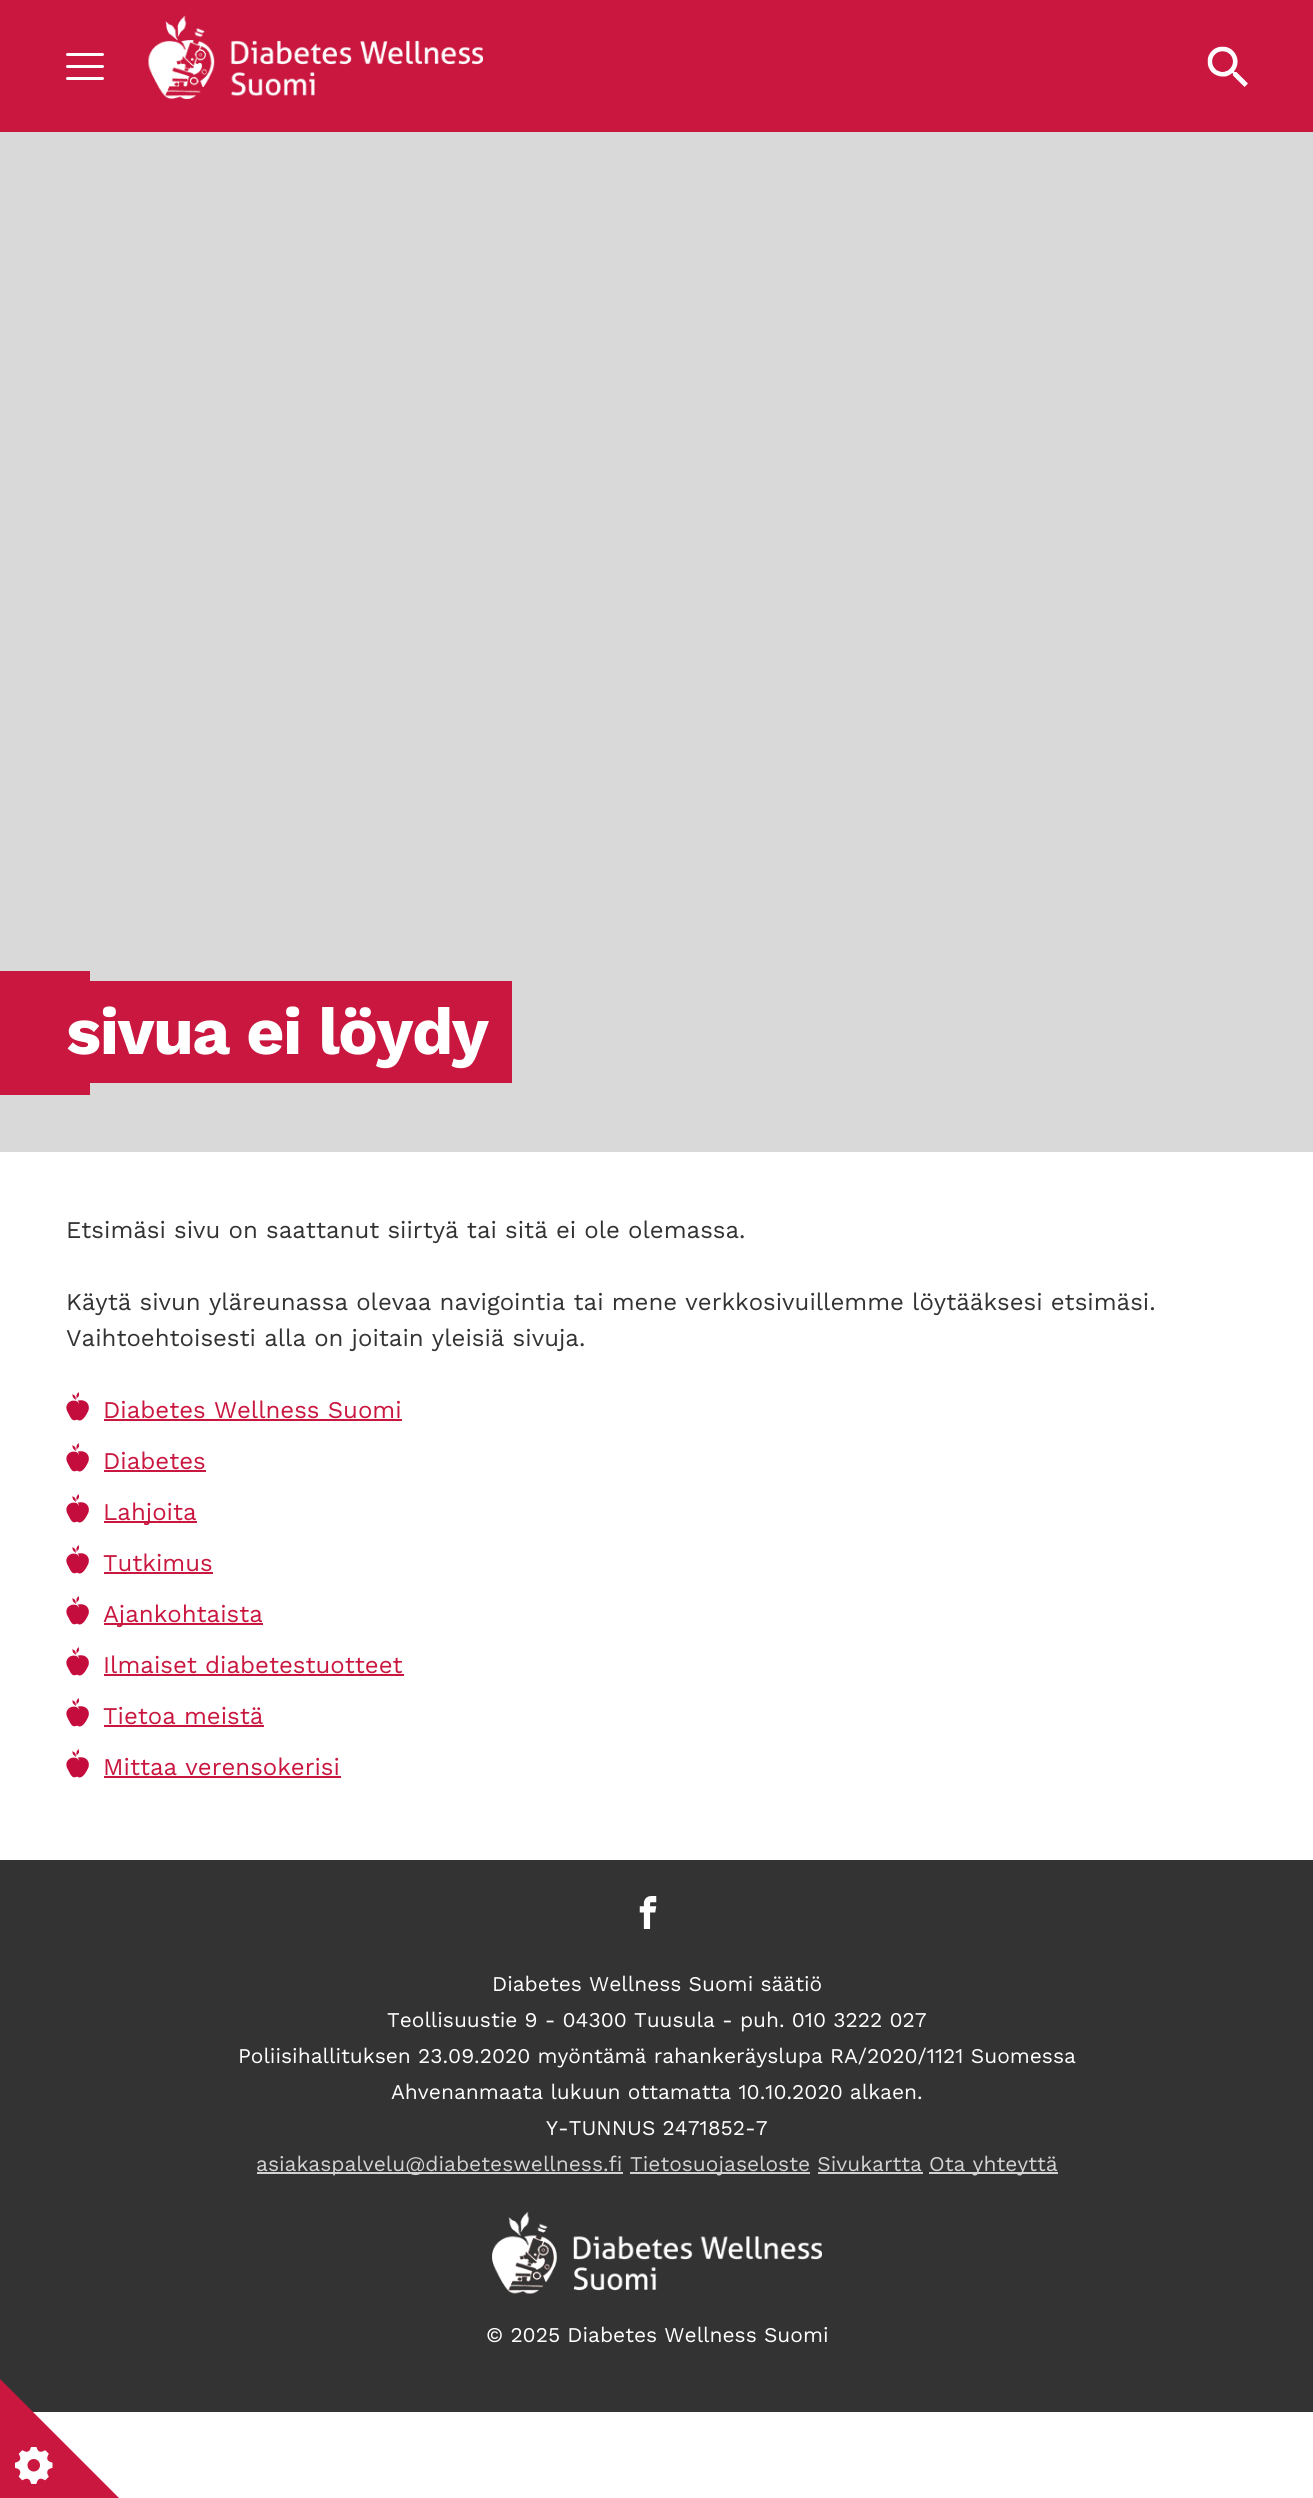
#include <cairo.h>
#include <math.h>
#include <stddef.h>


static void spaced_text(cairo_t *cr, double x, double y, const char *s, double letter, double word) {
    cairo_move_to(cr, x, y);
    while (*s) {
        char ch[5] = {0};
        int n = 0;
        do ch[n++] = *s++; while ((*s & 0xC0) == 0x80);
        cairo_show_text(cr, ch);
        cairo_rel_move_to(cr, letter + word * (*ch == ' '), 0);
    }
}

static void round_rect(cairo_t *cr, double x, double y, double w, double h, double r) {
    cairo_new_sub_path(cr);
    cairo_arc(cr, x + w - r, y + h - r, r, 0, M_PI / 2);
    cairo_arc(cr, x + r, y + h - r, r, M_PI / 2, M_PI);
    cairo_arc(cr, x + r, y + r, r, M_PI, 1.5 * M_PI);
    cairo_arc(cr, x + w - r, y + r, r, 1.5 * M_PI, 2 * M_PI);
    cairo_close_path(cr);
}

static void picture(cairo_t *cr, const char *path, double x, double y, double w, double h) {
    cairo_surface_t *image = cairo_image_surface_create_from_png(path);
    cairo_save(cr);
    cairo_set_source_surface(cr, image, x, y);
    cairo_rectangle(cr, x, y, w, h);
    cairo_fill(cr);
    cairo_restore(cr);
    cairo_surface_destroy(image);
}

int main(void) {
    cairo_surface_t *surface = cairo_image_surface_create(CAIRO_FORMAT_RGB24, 1313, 2498);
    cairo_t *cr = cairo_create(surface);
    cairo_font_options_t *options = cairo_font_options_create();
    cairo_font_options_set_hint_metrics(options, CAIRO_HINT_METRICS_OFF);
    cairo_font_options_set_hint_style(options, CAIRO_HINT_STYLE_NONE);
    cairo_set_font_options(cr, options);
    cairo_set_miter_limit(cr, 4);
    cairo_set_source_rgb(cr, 1, 1, 1);
    cairo_paint(cr);
    cairo_set_source_rgb(cr, 0.788, 0.09, 0.247);
    cairo_rectangle(cr, 0, 0, 1313, 132);
    cairo_fill(cr);
    cairo_set_source_rgb(cr, 1, 1, 1);
    round_rect(cr, 66, 53, 38, 3, 1.5);
    cairo_fill(cr);
    round_rect(cr, 66, 65, 38, 3, 1.5);
    cairo_fill(cr);
    round_rect(cr, 66, 77, 38, 3, 1.5);
    cairo_fill(cr);
    picture(cr, "img1.png", 148, 15, 335, 84);
    picture(cr, "img2.png", 1207, 46, 41, 41);
    cairo_set_source_rgb(cr, 0.851, 0.851, 0.851);
    cairo_rectangle(cr, 0, 132, 1313, 1020);
    cairo_fill(cr);
    cairo_set_source_rgb(cr, 0.788, 0.09, 0.247);
    cairo_rectangle(cr, 0, 971, 90, 124);
    cairo_fill(cr);
    cairo_rectangle(cr, 90, 981, 422, 102);
    cairo_fill(cr);
    cairo_select_font_face(cr, "Work Sans", CAIRO_FONT_SLANT_NORMAL, CAIRO_FONT_WEIGHT_BOLD);
    cairo_set_font_size(cr, 66);
    cairo_set_source_rgb(cr, 1, 1, 1);
    spaced_text(cr, 66, 1054, "sivua ei löydy", -1.5, 0);
    cairo_select_font_face(cr, "Work Sans", CAIRO_FONT_SLANT_NORMAL, CAIRO_FONT_WEIGHT_NORMAL);
    cairo_set_font_size(cr, 24);
    cairo_set_source_rgb(cr, 0.2, 0.2, 0.2);
    cairo_move_to(cr, 66, 1238);
    cairo_show_text(cr, "Etsimäsi sivu on saattanut siirtyä tai sitä ei ole olemassa.");
    cairo_move_to(cr, 66, 1310);
    cairo_show_text(cr, "Käytä sivun yläreunassa olevaa navigointia tai mene verkkosivuillemme löytääksesi etsimäsi.");
    cairo_move_to(cr, 66, 1346);
    cairo_show_text(cr, "Vaihtoehtoisesti alla on joitain yleisiä sivuja.");
    picture(cr, "img3.png", 66, 1391, 23, 30);
    cairo_set_source_rgb(cr, 0.788, 0.09, 0.247);
    cairo_move_to(cr, 103, 1418);
    cairo_show_text(cr, "Diabetes Wellness Suomi");
    cairo_rectangle(cr, 104, 1419, 298, 2);
    cairo_fill(cr);
    picture(cr, "img3.png", 66, 1442, 23, 30);
    cairo_move_to(cr, 103, 1469);
    cairo_show_text(cr, "Diabetes");
    cairo_rectangle(cr, 104, 1470, 102, 2);
    cairo_fill(cr);
    picture(cr, "img3.png", 66, 1493, 23, 30);
    cairo_rectangle(cr, 104, 1521, 93, 2);
    cairo_fill(cr);
    cairo_move_to(cr, 103, 1520);
    cairo_show_text(cr, "Lahjoita");
    picture(cr, "img3.png", 66, 1544, 23, 30);
    cairo_move_to(cr, 103, 1571);
    cairo_show_text(cr, "Tutkimus");
    cairo_rectangle(cr, 104, 1572, 109, 2);
    cairo_fill(cr);
    picture(cr, "img3.png", 66, 1595, 23, 30);
    cairo_rectangle(cr, 104, 1623, 159, 2);
    cairo_fill(cr);
    cairo_move_to(cr, 103, 1622);
    cairo_show_text(cr, "Ajankohtaista");
    picture(cr, "img3.png", 66, 1646, 23, 30);
    cairo_move_to(cr, 103, 1673);
    cairo_show_text(cr, "Ilmaiset diabetestuotteet");
    cairo_rectangle(cr, 104, 1674, 300, 2);
    cairo_fill(cr);
    picture(cr, "img3.png", 66, 1697, 23, 30);
    cairo_move_to(cr, 103, 1724);
    cairo_show_text(cr, "Tietoa meistä");
    cairo_rectangle(cr, 104, 1725, 160, 2);
    cairo_fill(cr);
    picture(cr, "img3.png", 66, 1748, 23, 30);
    cairo_move_to(cr, 103, 1775);
    cairo_show_text(cr, "Mittaa verensokerisi");
    cairo_rectangle(cr, 104, 1776, 237, 2);
    cairo_fill(cr);
    cairo_set_source_rgb(cr, 0.2, 0.2, 0.2);
    cairo_rectangle(cr, 0, 1860, 1313, 552);
    cairo_fill(cr);
    picture(cr, "img4.png", 639, 1896, 18, 33);
    cairo_set_font_size(cr, 21);
    cairo_set_source_rgb(cr, 1, 1, 1);
    cairo_move_to(cr, 492, 1991);
    cairo_show_text(cr, "Diabetes Wellness Suomi säätiö");
    cairo_move_to(cr, 387, 2027);
    cairo_show_text(cr, "Teollisuustie 9 - 04300 Tuusula - puh. 010 3222 027");
    cairo_move_to(cr, 238, 2063);
    cairo_show_text(cr, "Poliisihallituksen 23.09.2020 myöntämä rahankeräyslupa RA/2020/1121 Suomessa");
    cairo_move_to(cr, 391, 2099);
    cairo_show_text(cr, "Ahvenanmaata lukuun ottamatta 10.10.2020 alkaen.");
    cairo_move_to(cr, 546, 2135);
    cairo_show_text(cr, "Y-TUNNUS 2471852-7");
    cairo_set_source_rgb(cr, 0.827, 0.827, 0.827);
    cairo_rectangle(cr, 257, 2172, 366, 2);
    cairo_fill(cr);
    cairo_move_to(cr, 256, 2171);
    cairo_show_text(cr, "asiakaspalvelu@diabeteswellness.fi");
    cairo_rectangle(cr, 630, 2172, 180, 2);
    cairo_fill(cr);
    cairo_move_to(cr, 630, 2171);
    cairo_show_text(cr, "Tietosuojaseloste Sivukartta");
    cairo_rectangle(cr, 929, 2172, 129, 2);
    cairo_fill(cr);
    cairo_move_to(cr, 929, 2171);
    cairo_show_text(cr, "Ota yhteyttä");
    cairo_rectangle(cr, 818, 2172, 105, 2);
    cairo_fill(cr);
    picture(cr, "img5.png", 492, 2211, 330, 83);
    cairo_set_source_rgb(cr, 1, 1, 1);
    cairo_move_to(cr, 486, 2342);
    cairo_show_text(cr, "© 2025 Diabetes Wellness Suomi");
    cairo_set_source_rgb(cr, 0.788, 0.09, 0.247);
    cairo_new_path(cr);
    cairo_move_to(cr, 120, 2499);
    cairo_line_to(cr, 0, 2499);
    cairo_line_to(cr, 0, 2379);
    cairo_close_path(cr);
    cairo_fill(cr);
    picture(cr, "img6.png", 15, 2447, 38, 37);
    cairo_surface_write_to_png(surface, "page.png");
    cairo_font_options_destroy(options);
    cairo_destroy(cr);
    cairo_surface_destroy(surface);
    return 0;
}
